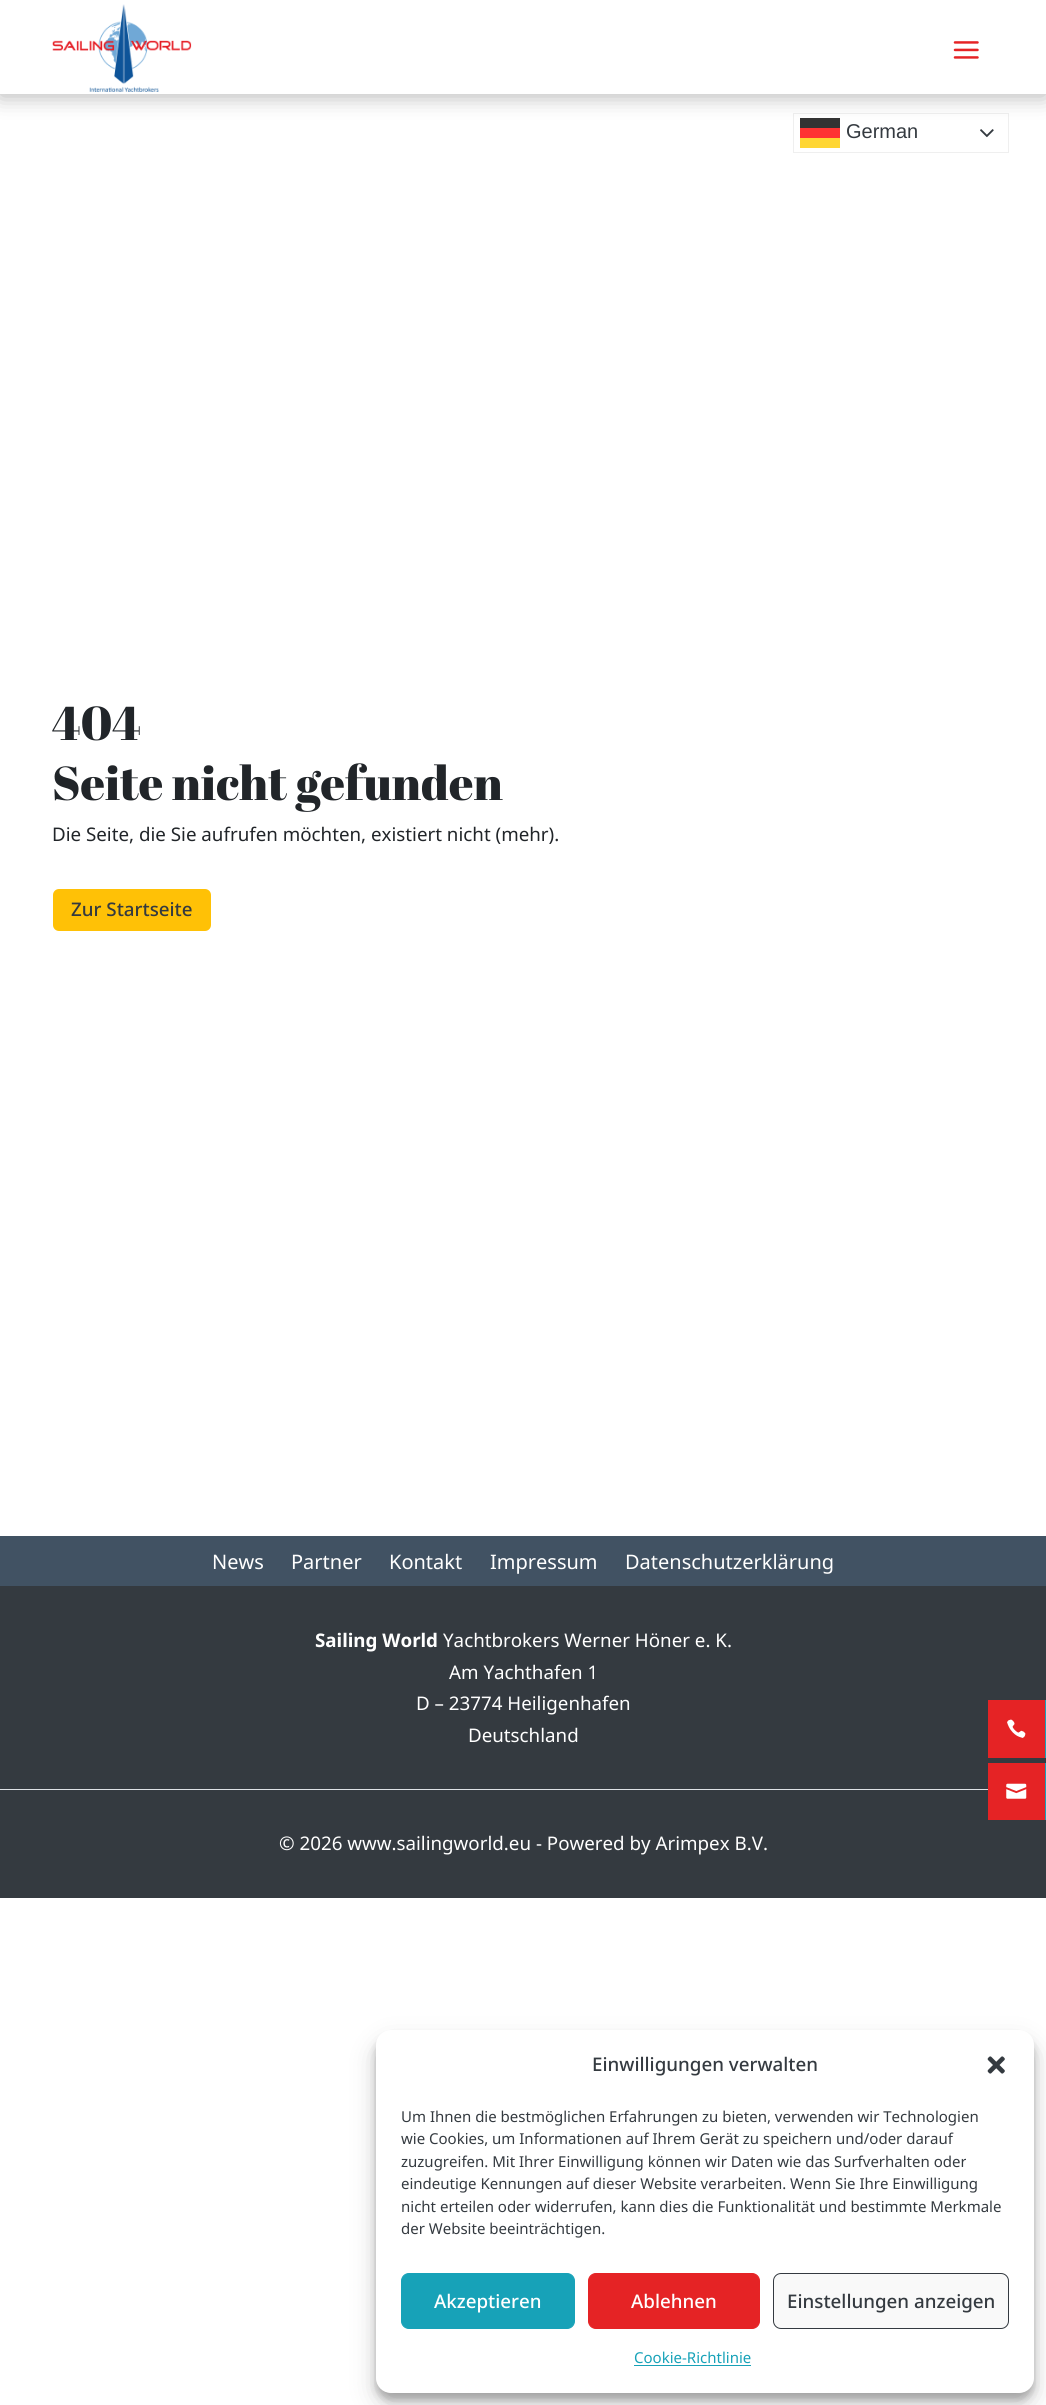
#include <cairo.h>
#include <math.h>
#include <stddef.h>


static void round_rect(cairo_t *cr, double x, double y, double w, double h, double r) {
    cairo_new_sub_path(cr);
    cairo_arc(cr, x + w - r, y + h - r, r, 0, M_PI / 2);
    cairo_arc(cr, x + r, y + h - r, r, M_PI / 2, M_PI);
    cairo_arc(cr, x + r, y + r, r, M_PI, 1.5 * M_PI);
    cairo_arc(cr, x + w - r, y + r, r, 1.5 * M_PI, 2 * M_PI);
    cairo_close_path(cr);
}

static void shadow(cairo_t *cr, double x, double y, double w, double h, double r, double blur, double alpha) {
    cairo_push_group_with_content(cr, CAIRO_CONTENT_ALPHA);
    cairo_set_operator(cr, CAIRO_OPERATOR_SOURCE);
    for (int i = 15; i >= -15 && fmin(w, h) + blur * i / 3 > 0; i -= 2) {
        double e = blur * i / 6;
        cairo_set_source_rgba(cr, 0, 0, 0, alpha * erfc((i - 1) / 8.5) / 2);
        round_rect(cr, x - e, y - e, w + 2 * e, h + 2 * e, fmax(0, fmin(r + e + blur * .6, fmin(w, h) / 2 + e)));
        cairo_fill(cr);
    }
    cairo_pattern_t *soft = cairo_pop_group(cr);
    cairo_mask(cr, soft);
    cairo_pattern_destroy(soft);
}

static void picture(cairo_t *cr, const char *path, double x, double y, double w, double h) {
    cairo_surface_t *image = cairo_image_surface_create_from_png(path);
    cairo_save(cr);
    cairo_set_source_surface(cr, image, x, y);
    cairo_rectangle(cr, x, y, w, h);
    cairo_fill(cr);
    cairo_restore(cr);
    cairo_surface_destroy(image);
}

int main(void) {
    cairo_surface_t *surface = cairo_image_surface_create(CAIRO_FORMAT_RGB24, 1046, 2405);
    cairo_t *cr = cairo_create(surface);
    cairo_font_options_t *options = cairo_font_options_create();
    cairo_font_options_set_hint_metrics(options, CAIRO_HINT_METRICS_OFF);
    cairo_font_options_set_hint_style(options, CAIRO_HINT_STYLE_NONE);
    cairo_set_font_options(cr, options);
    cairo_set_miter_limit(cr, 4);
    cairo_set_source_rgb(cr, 1, 1, 1);
    cairo_paint(cr);
    cairo_rectangle(cr, 793.5, 113.5, 215, 39);
    cairo_set_source_rgb(cr, 0.937, 0.937, 0.937);
    cairo_set_line_width(cr, 1);
    cairo_stroke(cr);
    cairo_set_source_rgb(cr, 0.2, 0.2, 0.2);
    cairo_rectangle(cr, 800, 118, 40, 10);
    cairo_fill(cr);
    cairo_set_source_rgb(cr, 1, 0.2, 0.2);
    cairo_rectangle(cr, 800, 128, 40, 10);
    cairo_fill(cr);
    cairo_select_font_face(cr, "Liberation Sans", CAIRO_FONT_SLANT_NORMAL, CAIRO_FONT_WEIGHT_NORMAL);
    cairo_set_font_size(cr, 20);
    cairo_set_source_rgb(cr, 0.204, 0.227, 0.251);
    cairo_move_to(cr, 846, 138);
    cairo_show_text(cr, "German");
    picture(cr, "img1.png", 980, 129, 14, 9);
    cairo_set_source_rgb(cr, 1, 0.839, 0.2);
    cairo_rectangle(cr, 800, 138, 40, 10);
    cairo_fill(cr);
    cairo_set_source_rgb(cr, 0, 0, 0);
    shadow(cr, 0, 3, 1046, 93, 0, 11, 0.3);
    cairo_set_source_rgb(cr, 1, 1, 1);
    cairo_rectangle(cr, 0, 0, 1046, 94);
    cairo_fill(cr);
    picture(cr, "img2.png", 52, 4, 140, 88);
    picture(cr, "img3.png", 953, 41, 26, 18);
    cairo_select_font_face(cr, "Abril Fatface", CAIRO_FONT_SLANT_NORMAL, CAIRO_FONT_WEIGHT_NORMAL);
    cairo_set_font_size(cr, 47.5);
    cairo_set_source_rgb(cr, 0.129, 0.145, 0.161);
    cairo_move_to(cr, 52, 740);
    cairo_show_text(cr, "404");
    cairo_move_to(cr, 52, 800);
    cairo_show_text(cr, "Seite nicht gefunden");
    cairo_select_font_face(cr, "Noto Sans", CAIRO_FONT_SLANT_NORMAL, CAIRO_FONT_WEIGHT_NORMAL);
    cairo_set_font_size(cr, 18.75);
    cairo_move_to(cr, 52, 841);
    cairo_show_text(cr, "Die Seite, die Sie aufrufen möchten, existiert nicht (mehr).");
    cairo_set_source_rgb(cr, 1, 0.757, 0.027);
    round_rect(cr, 53, 889, 158, 42, 6);
    cairo_fill(cr);
    cairo_select_font_face(cr, "Noto Sans Medium", CAIRO_FONT_SLANT_NORMAL, CAIRO_FONT_WEIGHT_NORMAL);
    cairo_set_source_rgb(cr, 0.204, 0.227, 0.251);
    cairo_move_to(cr, 71, 916);
    cairo_show_text(cr, "Zur Startseite");
    cairo_set_source_rgb(cr, 0.255, 0.322, 0.388);
    cairo_rectangle(cr, 0, 1536, 1046, 50);
    cairo_fill(cr);
    cairo_select_font_face(cr, "Noto Sans", CAIRO_FONT_SLANT_NORMAL, CAIRO_FONT_WEIGHT_NORMAL);
    cairo_set_font_size(cr, 20);
    cairo_set_source_rgb(cr, 1, 1, 1);
    cairo_move_to(cr, 212, 1569);
    cairo_show_text(cr, "News");
    cairo_move_to(cr, 291, 1569);
    cairo_show_text(cr, "Partner");
    cairo_move_to(cr, 389, 1569);
    cairo_show_text(cr, "Kontakt");
    cairo_move_to(cr, 490, 1569);
    cairo_show_text(cr, "Impressum");
    cairo_move_to(cr, 625, 1569);
    cairo_show_text(cr, "Datenschutzerklärung");
    cairo_set_source_rgb(cr, 0.204, 0.227, 0.251);
    cairo_rectangle(cr, 0, 1586, 1046, 203);
    cairo_fill(cr);
    cairo_select_font_face(cr, "Noto Sans", CAIRO_FONT_SLANT_NORMAL, CAIRO_FONT_WEIGHT_BOLD);
    cairo_set_font_size(cr, 18.75);
    cairo_set_source_rgb(cr, 1, 1, 1);
    cairo_move_to(cr, 315, 1647);
    cairo_show_text(cr, "Sailing World");
    cairo_select_font_face(cr, "Noto Sans", CAIRO_FONT_SLANT_NORMAL, CAIRO_FONT_WEIGHT_NORMAL);
    cairo_move_to(cr, 443, 1647);
    cairo_show_text(cr, "Yachtbrokers Werner Höner e. K.");
    cairo_move_to(cr, 449, 1679);
    cairo_show_text(cr, "Am Yachthafen 1");
    cairo_move_to(cr, 416, 1710);
    cairo_show_text(cr, "D – 23774 Heiligenhafen");
    cairo_move_to(cr, 468, 1742);
    cairo_show_text(cr, "Deutschland");
    cairo_set_source_rgb(cr, 0.09, 0.635, 0.725);
    cairo_rectangle(cr, 1045, 1700, 1, 58);
    cairo_fill(cr);
    cairo_set_source_rgb(cr, 0.898, 0.137, 0.145);
    cairo_rectangle(cr, 988, 1700, 57, 58);
    cairo_fill(cr);
    picture(cr, "img4.png", 1007, 1719, 19, 19);
    cairo_set_source_rgb(cr, 0.204, 0.227, 0.251);
    cairo_rectangle(cr, 0, 1790, 1046, 108);
    cairo_fill(cr);
    cairo_set_source_rgb(cr, 0.09, 0.635, 0.725);
    cairo_rectangle(cr, 1045, 1763, 1, 57);
    cairo_fill(cr);
    cairo_set_source_rgb(cr, 0.898, 0.137, 0.145);
    cairo_rectangle(cr, 988, 1763, 57, 57);
    cairo_fill(cr);
    picture(cr, "img5.png", 1006, 1783, 21, 16);
    cairo_set_source_rgb(cr, 0.871, 0.886, 0.902);
    cairo_rectangle(cr, 0, 1789, 988, 1);
    cairo_fill(cr);
    cairo_set_source_rgb(cr, 1, 1, 1);
    cairo_move_to(cr, 279, 1850);
    cairo_show_text(cr, "© 2026 www.sailingworld.eu - Powered by Arimpex B.V.");
    cairo_set_source_rgb(cr, 0, 0, 0);
    shadow(cr, 376, 2038, 658, 362, 15, 4, 0.23);
    shadow(cr, 376, 2043, 658, 362, 15, 12.5, 0.19);
    cairo_set_source_rgb(cr, 1, 1, 1);
    round_rect(cr, 376, 2030, 658, 363, 15);
    cairo_fill(cr);
    cairo_select_font_face(cr, "Noto Sans Medium", CAIRO_FONT_SLANT_NORMAL, CAIRO_FONT_WEIGHT_NORMAL);
    cairo_set_source_rgb(cr, 0.204, 0.227, 0.251);
    cairo_move_to(cr, 592, 2071);
    cairo_show_text(cr, "Einwilligungen verwalten");
    picture(cr, "img6.png", 987, 2056, 18, 18);
    cairo_select_font_face(cr, "Noto Sans", CAIRO_FONT_SLANT_NORMAL, CAIRO_FONT_WEIGHT_NORMAL);
    cairo_set_font_size(cr, 15);
    cairo_move_to(cr, 401, 2122);
    cairo_show_text(cr, "Um Ihnen die bestmöglichen Erfahrungen zu bieten, verwenden wir Technologien");
    cairo_move_to(cr, 401, 2144);
    cairo_show_text(cr, "wie Cookies, um Informationen auf Ihrem Gerät zu speichern und/oder darauf");
    cairo_move_to(cr, 401, 2167);
    cairo_show_text(cr, "zuzugreifen. Mit Ihrer Einwilligung können wir Daten wie das Surfverhalten oder");
    cairo_move_to(cr, 401, 2189);
    cairo_show_text(cr, "eindeutige Kennungen auf dieser Website verarbeiten. Wenn Sie Ihre Einwilligung");
    cairo_move_to(cr, 401, 2212);
    cairo_show_text(cr, "nicht erteilen oder widerrufen, kann dies die Funktionalität und bestimmte Merkmale");
    cairo_move_to(cr, 401, 2234);
    cairo_show_text(cr, "der Website beeinträchtigen.");
    cairo_set_source_rgb(cr, 0.09, 0.635, 0.722);
    round_rect(cr, 401.5, 2273.5, 173, 55, 7.5);
    cairo_fill_preserve(cr);
    cairo_stroke(cr);
    cairo_select_font_face(cr, "Noto Sans Medium", CAIRO_FONT_SLANT_NORMAL, CAIRO_FONT_WEIGHT_NORMAL);
    cairo_set_font_size(cr, 18.75);
    cairo_set_source_rgb(cr, 1, 1, 1);
    cairo_move_to(cr, 434, 2308);
    cairo_show_text(cr, "Akzeptieren");
    cairo_set_source_rgb(cr, 0.898, 0.137, 0.145);
    round_rect(cr, 588.5, 2273.5, 171, 55, 7.5);
    cairo_fill_preserve(cr);
    cairo_stroke(cr);
    cairo_set_source_rgb(cr, 1, 1, 1);
    cairo_move_to(cr, 631, 2308);
    cairo_show_text(cr, "Ablehnen");
    cairo_set_source_rgb(cr, 0.976, 0.976, 0.976);
    round_rect(cr, 773.5, 2273.5, 235, 55, 7.5);
    cairo_fill_preserve(cr);
    cairo_set_source_rgb(cr, 0.204, 0.227, 0.251);
    cairo_stroke(cr);
    cairo_move_to(cr, 787, 2308);
    cairo_show_text(cr, "Einstellungen anzeigen");
    cairo_select_font_face(cr, "Noto Sans", CAIRO_FONT_SLANT_NORMAL, CAIRO_FONT_WEIGHT_NORMAL);
    cairo_set_font_size(cr, 15);
    cairo_set_source_rgb(cr, 0.09, 0.635, 0.722);
    cairo_move_to(cr, 634, 2363);
    cairo_show_text(cr, "Cookie-Richtlinie");
    cairo_rectangle(cr, 634, 2365, 117, 1);
    cairo_fill(cr);
    cairo_surface_write_to_png(surface, "page.png");
    cairo_font_options_destroy(options);
    cairo_destroy(cr);
    cairo_surface_destroy(surface);
    return 0;
}
